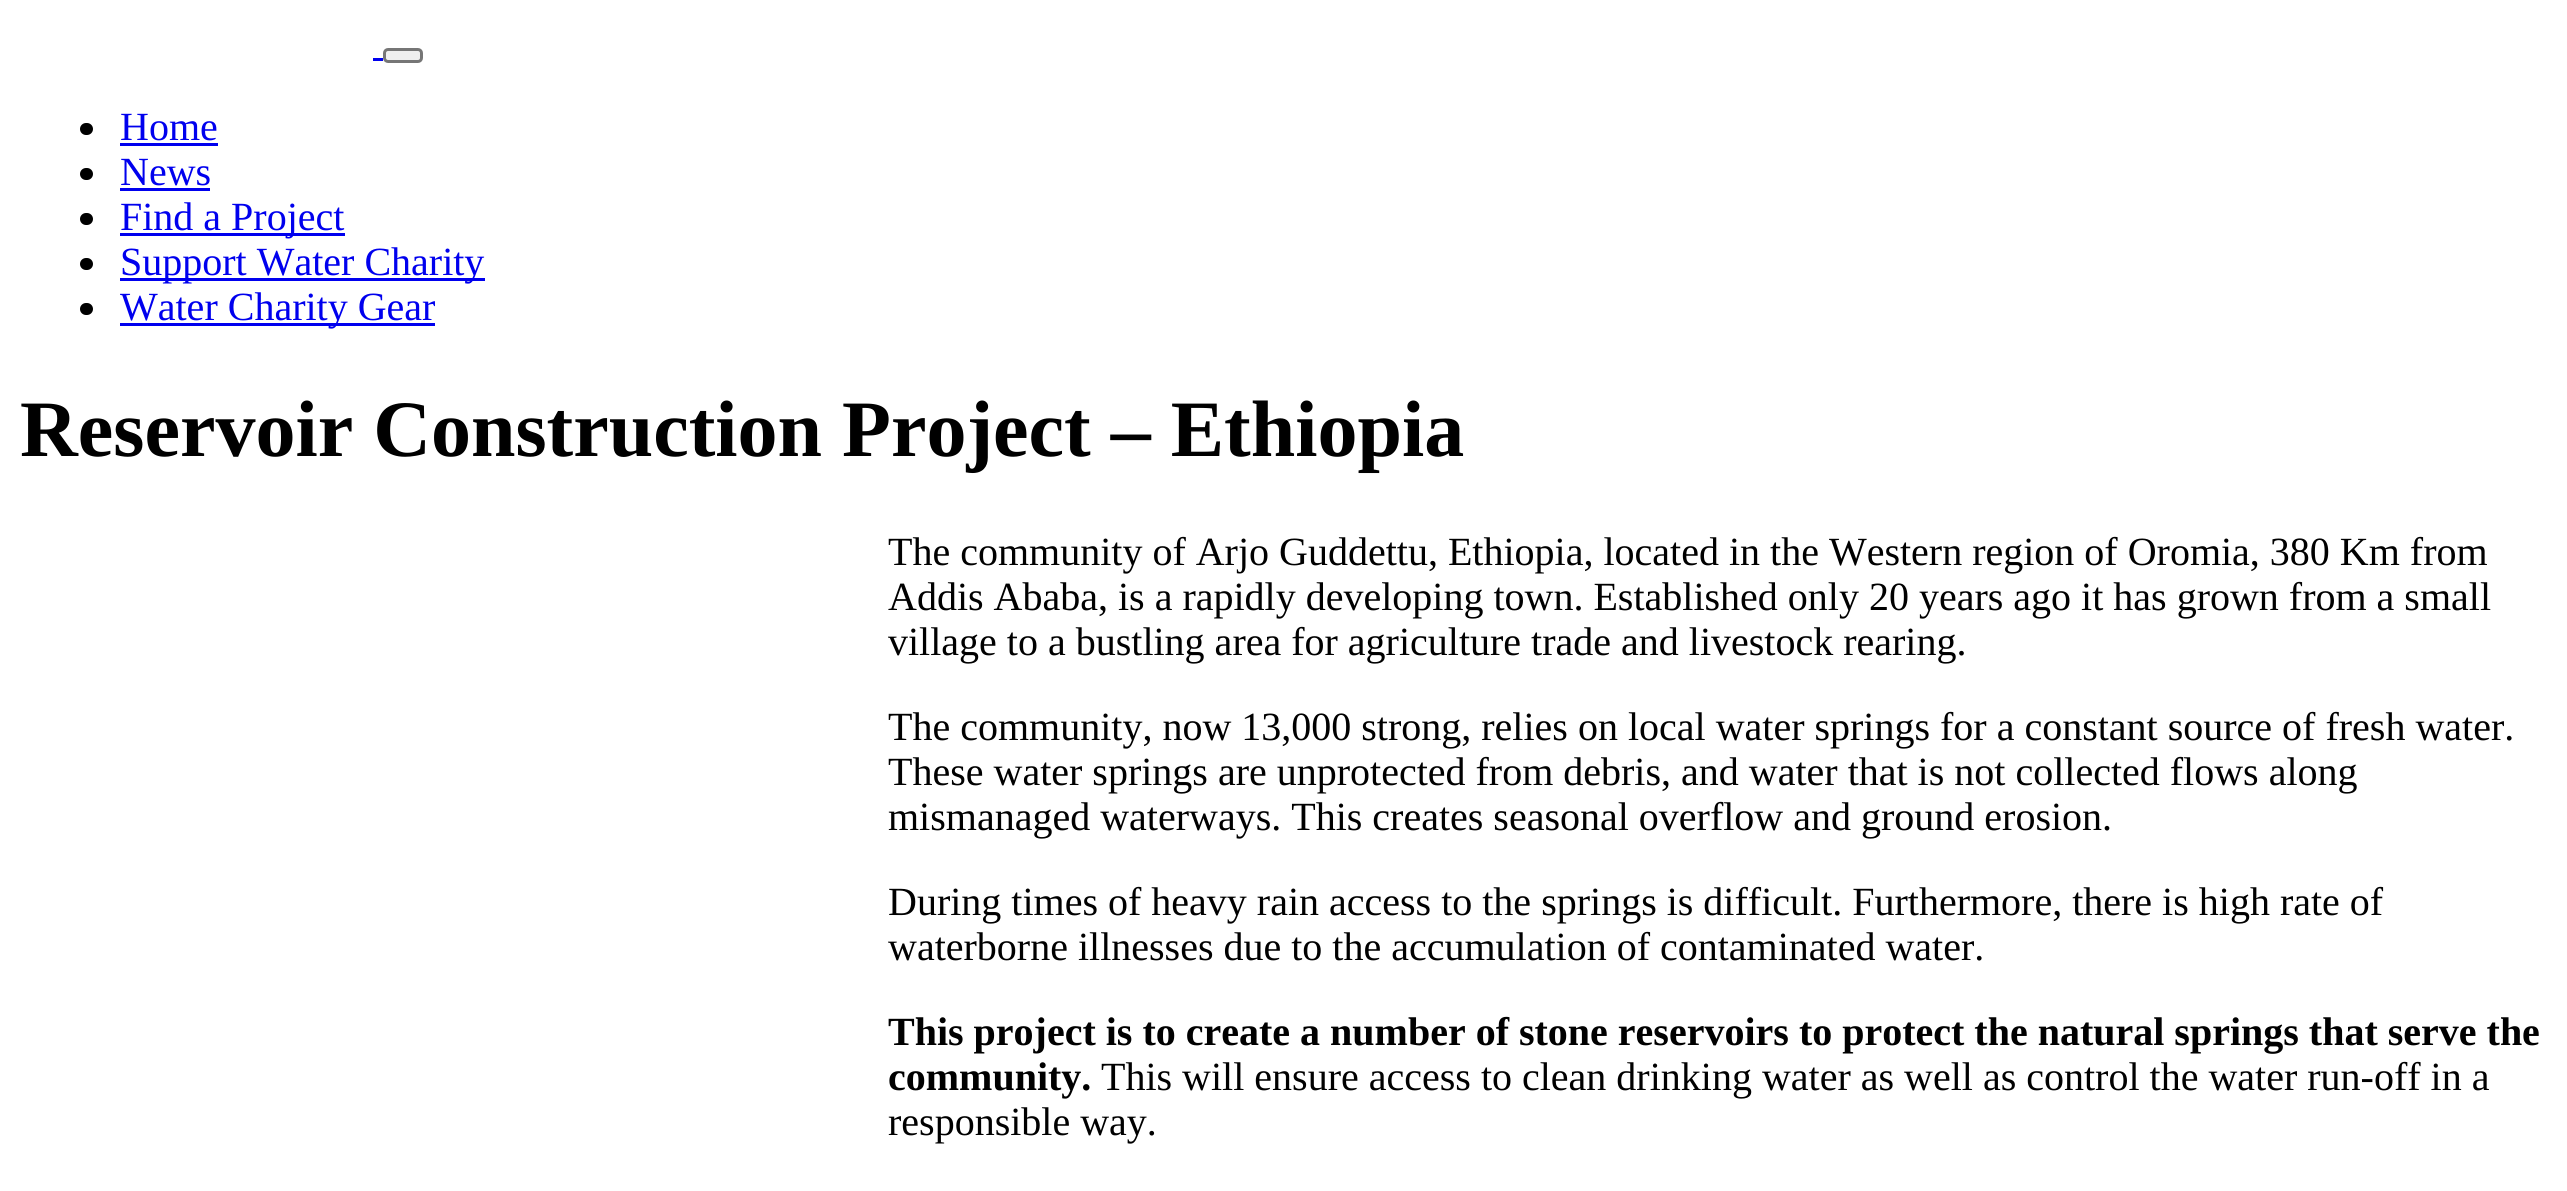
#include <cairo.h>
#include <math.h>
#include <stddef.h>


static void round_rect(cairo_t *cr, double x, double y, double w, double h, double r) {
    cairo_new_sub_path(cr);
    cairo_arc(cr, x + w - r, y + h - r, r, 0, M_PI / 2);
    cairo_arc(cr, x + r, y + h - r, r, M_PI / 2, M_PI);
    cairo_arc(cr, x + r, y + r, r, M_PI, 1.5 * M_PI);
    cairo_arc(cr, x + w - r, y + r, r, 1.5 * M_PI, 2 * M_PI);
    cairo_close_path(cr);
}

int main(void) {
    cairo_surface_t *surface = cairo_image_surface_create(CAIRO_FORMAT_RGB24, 2567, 1191);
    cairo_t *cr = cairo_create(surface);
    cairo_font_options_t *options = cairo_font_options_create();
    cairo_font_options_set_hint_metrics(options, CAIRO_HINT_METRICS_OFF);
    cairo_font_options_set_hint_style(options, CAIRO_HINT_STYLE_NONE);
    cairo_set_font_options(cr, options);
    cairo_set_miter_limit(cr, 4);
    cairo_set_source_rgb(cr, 1, 1, 1);
    cairo_paint(cr);
    cairo_set_source_rgb(cr, 0, 0, 0.933);
    cairo_rectangle(cr, 373, 58, 10, 3);
    cairo_fill(cr);
    cairo_set_source_rgb(cr, 0.937, 0.937, 0.937);
    round_rect(cr, 384.5, 49.5, 37, 12, 3.5);
    cairo_fill_preserve(cr);
    cairo_set_source_rgb(cr, 0.463, 0.463, 0.463);
    cairo_set_line_width(cr, 3);
    cairo_stroke(cr);
    cairo_set_source_rgb(cr, 0, 0, 0);
    round_rect(cr, 80, 123, 13, 12, 6);
    cairo_fill(cr);
    cairo_select_font_face(cr, "Liberation Serif", CAIRO_FONT_SLANT_NORMAL, CAIRO_FONT_WEIGHT_NORMAL);
    cairo_set_font_size(cr, 40);
    cairo_set_source_rgb(cr, 0, 0, 0.933);
    cairo_move_to(cr, 120, 140);
    cairo_show_text(cr, "Home");
    cairo_rectangle(cr, 120, 143, 98, 3);
    cairo_fill(cr);
    cairo_set_source_rgb(cr, 0, 0, 0);
    round_rect(cr, 80, 168, 13, 12, 6);
    cairo_fill(cr);
    cairo_set_source_rgb(cr, 0, 0, 0.933);
    cairo_move_to(cr, 120, 185);
    cairo_show_text(cr, "News");
    cairo_rectangle(cr, 120, 188, 90, 3);
    cairo_fill(cr);
    cairo_set_source_rgb(cr, 0, 0, 0);
    round_rect(cr, 80, 213, 13, 12, 6);
    cairo_fill(cr);
    cairo_set_source_rgb(cr, 0, 0, 0.933);
    cairo_rectangle(cr, 120, 233, 225, 3);
    cairo_fill(cr);
    cairo_move_to(cr, 120, 230);
    cairo_show_text(cr, "Find a Project");
    cairo_set_source_rgb(cr, 0, 0, 0);
    round_rect(cr, 80, 258, 13, 12, 6);
    cairo_fill(cr);
    cairo_set_source_rgb(cr, 0, 0, 0.933);
    cairo_rectangle(cr, 120, 278, 365, 3);
    cairo_fill(cr);
    cairo_move_to(cr, 120, 275);
    cairo_show_text(cr, "Support Water Charity");
    cairo_set_source_rgb(cr, 0, 0, 0);
    round_rect(cr, 80, 303, 13, 12, 6);
    cairo_fill(cr);
    cairo_set_source_rgb(cr, 0, 0, 0.933);
    cairo_rectangle(cr, 120, 323, 315, 3);
    cairo_fill(cr);
    cairo_move_to(cr, 120, 320);
    cairo_show_text(cr, "Water Charity Gear");
    cairo_select_font_face(cr, "Liberation Serif", CAIRO_FONT_SLANT_NORMAL, CAIRO_FONT_WEIGHT_BOLD);
    cairo_set_font_size(cr, 80);
    cairo_set_source_rgb(cr, 0, 0, 0);
    cairo_move_to(cr, 20, 456);
    cairo_show_text(cr, "Reservoir Construction Project – Ethiopia");
    cairo_select_font_face(cr, "Liberation Serif", CAIRO_FONT_SLANT_NORMAL, CAIRO_FONT_WEIGHT_NORMAL);
    cairo_set_font_size(cr, 40);
    cairo_move_to(cr, 888, 565);
    cairo_show_text(cr, "The community of Arjo Guddettu, Ethiopia, located in the Western region of Oromia, 380 Km from");
    cairo_move_to(cr, 888, 610);
    cairo_show_text(cr, "Addis Ababa, is a rapidly developing town. Established only 20 years ago it has grown from a small");
    cairo_move_to(cr, 888, 655);
    cairo_show_text(cr, "village to a bustling area for agriculture trade and livestock rearing.");
    cairo_move_to(cr, 888, 740);
    cairo_show_text(cr, "The community, now 13,000 strong, relies on local water springs for a constant source of fresh water.");
    cairo_move_to(cr, 888, 785);
    cairo_show_text(cr, "These water springs are unprotected from debris, and water that is not collected flows along");
    cairo_move_to(cr, 888, 830);
    cairo_show_text(cr, "mismanaged waterways. This creates seasonal overflow and ground erosion.");
    cairo_move_to(cr, 888, 915);
    cairo_show_text(cr, "During times of heavy rain access to the springs is difficult. Furthermore, there is high rate of");
    cairo_move_to(cr, 888, 960);
    cairo_show_text(cr, "waterborne illnesses due to the accumulation of contaminated water.");
    cairo_select_font_face(cr, "Liberation Serif", CAIRO_FONT_SLANT_NORMAL, CAIRO_FONT_WEIGHT_BOLD);
    cairo_move_to(cr, 888, 1045);
    cairo_show_text(cr, "This project is to create a number of stone reservoirs to protect the natural springs that serve the");
    cairo_move_to(cr, 888, 1090);
    cairo_show_text(cr, "community.");
    cairo_select_font_face(cr, "Liberation Serif", CAIRO_FONT_SLANT_NORMAL, CAIRO_FONT_WEIGHT_NORMAL);
    cairo_move_to(cr, 1101, 1090);
    cairo_show_text(cr, "This will ensure access to clean drinking water as well as control the water run-off in a");
    cairo_move_to(cr, 888, 1135);
    cairo_show_text(cr, "responsible way.");
    cairo_surface_write_to_png(surface, "page.png");
    cairo_font_options_destroy(options);
    cairo_destroy(cr);
    cairo_surface_destroy(surface);
    return 0;
}
